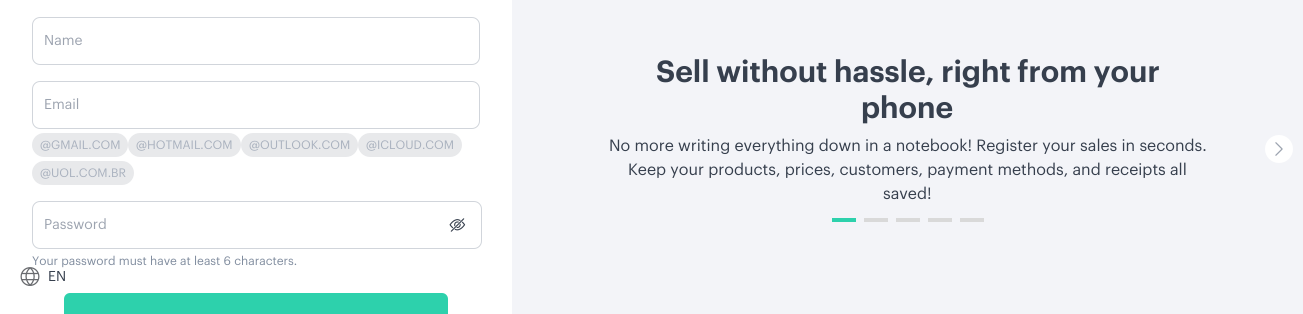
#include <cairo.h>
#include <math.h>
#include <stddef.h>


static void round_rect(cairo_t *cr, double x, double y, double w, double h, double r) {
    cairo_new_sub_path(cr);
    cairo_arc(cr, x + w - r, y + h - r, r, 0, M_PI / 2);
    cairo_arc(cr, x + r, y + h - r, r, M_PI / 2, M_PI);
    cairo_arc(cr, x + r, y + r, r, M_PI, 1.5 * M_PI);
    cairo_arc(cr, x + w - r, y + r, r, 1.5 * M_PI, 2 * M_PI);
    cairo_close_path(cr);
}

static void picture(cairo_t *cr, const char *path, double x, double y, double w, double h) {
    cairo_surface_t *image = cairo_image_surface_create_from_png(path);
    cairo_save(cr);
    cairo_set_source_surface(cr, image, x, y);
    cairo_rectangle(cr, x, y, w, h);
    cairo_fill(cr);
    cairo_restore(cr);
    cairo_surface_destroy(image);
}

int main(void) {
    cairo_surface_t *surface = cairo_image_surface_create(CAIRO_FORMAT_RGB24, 1303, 314);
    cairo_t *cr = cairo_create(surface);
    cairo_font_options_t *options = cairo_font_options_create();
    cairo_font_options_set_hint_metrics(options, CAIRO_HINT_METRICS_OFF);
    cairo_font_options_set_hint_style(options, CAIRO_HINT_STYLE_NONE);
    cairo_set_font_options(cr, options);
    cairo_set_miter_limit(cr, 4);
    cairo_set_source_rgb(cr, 1, 1, 1);
    cairo_paint(cr);
    round_rect(cr, 32.5, 17.5, 447, 47, 7.5);
    cairo_set_source_rgb(cr, 0.82, 0.835, 0.859);
    cairo_set_line_width(cr, 1);
    cairo_stroke(cr);
    cairo_select_font_face(cr, "Graphik", CAIRO_FONT_SLANT_NORMAL, CAIRO_FONT_WEIGHT_NORMAL);
    cairo_set_font_size(cr, 14);
    cairo_set_source_rgb(cr, 0.612, 0.639, 0.686);
    cairo_move_to(cr, 44, 45);
    cairo_show_text(cr, "Name");
    round_rect(cr, 32.5, 81.5, 447, 47, 7.5);
    cairo_set_source_rgb(cr, 0.82, 0.835, 0.859);
    cairo_stroke(cr);
    cairo_set_source_rgb(cr, 0.612, 0.639, 0.686);
    cairo_move_to(cr, 44, 109);
    cairo_show_text(cr, "Email");
    cairo_set_source_rgb(cr, 0.91, 0.914, 0.918);
    round_rect(cr, 32, 133, 96, 24, 12);
    cairo_fill(cr);
    cairo_set_font_size(cr, 12);
    cairo_set_source_rgb(cr, 0.663, 0.694, 0.745);
    cairo_move_to(cr, 40, 149);
    cairo_show_text(cr, "@GMAIL.COM");
    cairo_set_source_rgb(cr, 0.91, 0.914, 0.918);
    round_rect(cr, 128, 133, 113, 24, 12);
    cairo_fill(cr);
    cairo_set_source_rgb(cr, 0.663, 0.694, 0.745);
    cairo_move_to(cr, 136, 149);
    cairo_show_text(cr, "@HOTMAIL.COM");
    cairo_set_source_rgb(cr, 0.91, 0.914, 0.918);
    round_rect(cr, 241, 133, 117, 24, 12);
    cairo_fill(cr);
    cairo_set_source_rgb(cr, 0.663, 0.694, 0.745);
    cairo_move_to(cr, 249, 149);
    cairo_show_text(cr, "@OUTLOOK.COM");
    cairo_set_source_rgb(cr, 0.91, 0.914, 0.918);
    round_rect(cr, 358, 133, 104, 24, 12);
    cairo_fill(cr);
    cairo_set_source_rgb(cr, 0.663, 0.694, 0.745);
    cairo_move_to(cr, 366, 149);
    cairo_show_text(cr, "@ICLOUD.COM");
    cairo_set_source_rgb(cr, 0.91, 0.914, 0.918);
    round_rect(cr, 32, 161, 102, 24, 12);
    cairo_fill(cr);
    cairo_set_source_rgb(cr, 0.663, 0.694, 0.745);
    cairo_move_to(cr, 40, 177);
    cairo_show_text(cr, "@UOL.COM.BR");
    round_rect(cr, 32.5, 201.5, 449, 47, 7.5);
    cairo_set_source_rgb(cr, 0.82, 0.835, 0.859);
    cairo_stroke(cr);
    cairo_set_font_size(cr, 14);
    cairo_set_source_rgb(cr, 0.612, 0.639, 0.686);
    cairo_move_to(cr, 44, 229);
    cairo_show_text(cr, "Password");
    picture(cr, "img1.png", 449, 218, 17, 14);
    cairo_set_font_size(cr, 12);
    cairo_set_source_rgb(cr, 0.502, 0.549, 0.62);
    cairo_move_to(cr, 32, 265);
    cairo_show_text(cr, "Your password must have at least 6 characters.");
    cairo_set_source_rgb(cr, 0.176, 0.82, 0.675);
    round_rect(cr, 64, 293, 384, 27, 6);
    cairo_fill(cr);
    cairo_set_source_rgb(cr, 0.953, 0.957, 0.969);
    cairo_rectangle(cr, 512, 0, 791, 314);
    cairo_fill(cr);
    cairo_select_font_face(cr, "Graphik SemiBold", CAIRO_FONT_SLANT_NORMAL, CAIRO_FONT_WEIGHT_NORMAL);
    cairo_set_font_size(cr, 30);
    cairo_set_source_rgb(cr, 0.212, 0.247, 0.302);
    cairo_move_to(cr, 656, 82);
    cairo_show_text(cr, "Sell without hassle, right from your");
    cairo_move_to(cr, 861, 118);
    cairo_show_text(cr, "phone");
    cairo_select_font_face(cr, "Graphik", CAIRO_FONT_SLANT_NORMAL, CAIRO_FONT_WEIGHT_NORMAL);
    cairo_set_font_size(cr, 16);
    cairo_move_to(cr, 609, 151);
    cairo_show_text(cr, "No more writing everything down in a notebook! Register your sales in seconds.");
    cairo_move_to(cr, 628, 175);
    cairo_show_text(cr, "Keep your products, prices, customers, payment methods, and receipts all");
    cairo_move_to(cr, 883, 199);
    cairo_show_text(cr, "saved!");
    cairo_set_source_rgb(cr, 1, 1, 1);
    cairo_new_path(cr);
    cairo_arc(cr, 1279, 149, 14, 0, 2 * M_PI);
    cairo_fill(cr);
    picture(cr, "img2.png", 1275, 142, 8, 14);
    cairo_set_source_rgb(cr, 0.176, 0.82, 0.675);
    cairo_rectangle(cr, 832, 218, 24, 4);
    cairo_fill(cr);
    cairo_set_source_rgb(cr, 0.851, 0.851, 0.851);
    cairo_rectangle(cr, 864, 218, 24, 4);
    cairo_fill(cr);
    cairo_rectangle(cr, 896, 218, 24, 4);
    cairo_fill(cr);
    cairo_rectangle(cr, 928, 218, 24, 4);
    cairo_fill(cr);
    cairo_rectangle(cr, 960, 218, 24, 4);
    cairo_fill(cr);
    picture(cr, "img3.png", 20, 267, 20, 19);
    cairo_set_font_size(cr, 14);
    cairo_set_source_rgb(cr, 0.212, 0.247, 0.302);
    cairo_move_to(cr, 48, 281);
    cairo_show_text(cr, "EN");
    cairo_surface_write_to_png(surface, "page.png");
    cairo_font_options_destroy(options);
    cairo_destroy(cr);
    cairo_surface_destroy(surface);
    return 0;
}
